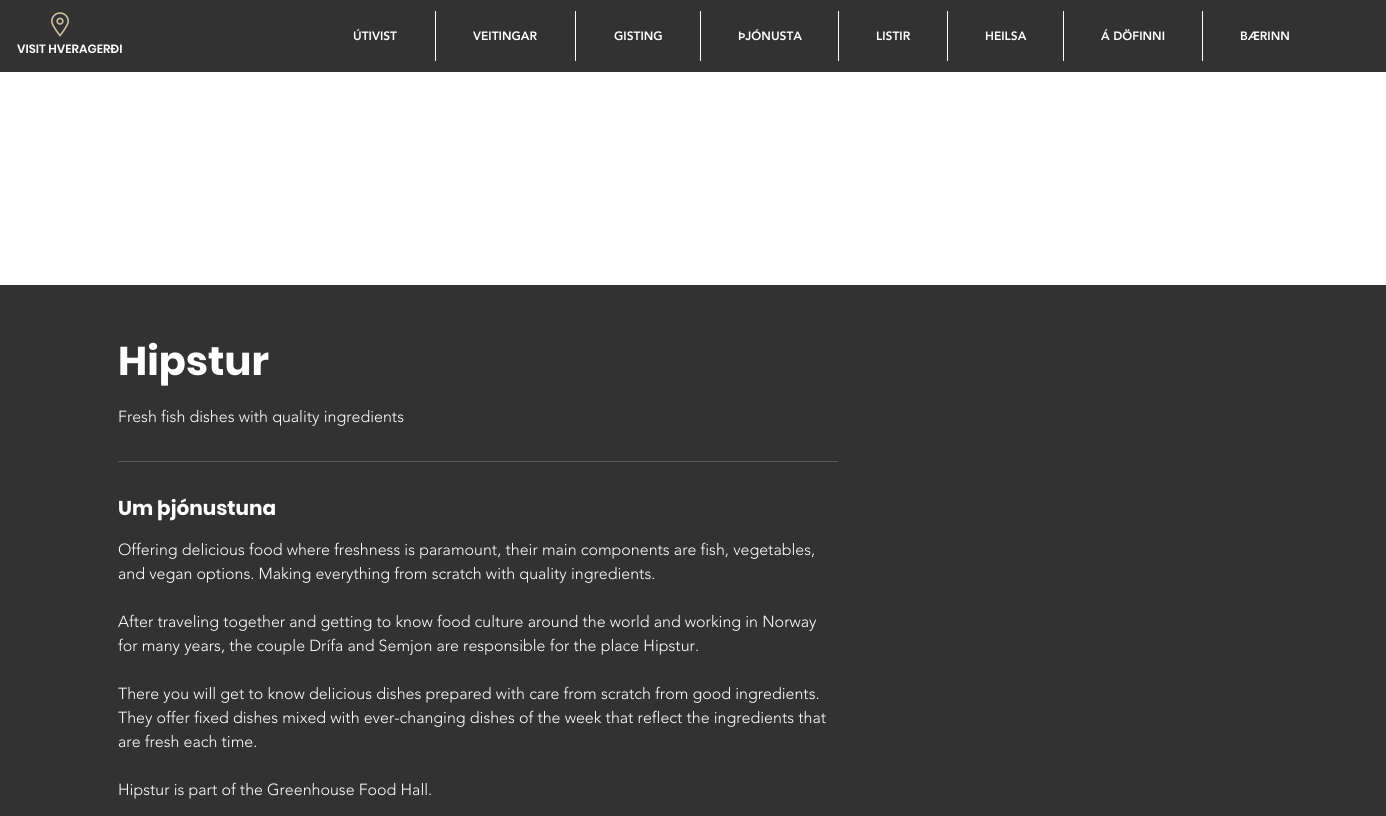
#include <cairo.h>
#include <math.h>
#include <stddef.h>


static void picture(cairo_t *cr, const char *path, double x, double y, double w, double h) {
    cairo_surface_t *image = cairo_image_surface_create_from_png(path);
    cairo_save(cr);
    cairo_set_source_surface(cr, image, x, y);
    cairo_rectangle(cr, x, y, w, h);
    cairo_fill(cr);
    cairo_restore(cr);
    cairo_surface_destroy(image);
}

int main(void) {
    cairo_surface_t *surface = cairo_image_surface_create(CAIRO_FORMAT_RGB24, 1386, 816);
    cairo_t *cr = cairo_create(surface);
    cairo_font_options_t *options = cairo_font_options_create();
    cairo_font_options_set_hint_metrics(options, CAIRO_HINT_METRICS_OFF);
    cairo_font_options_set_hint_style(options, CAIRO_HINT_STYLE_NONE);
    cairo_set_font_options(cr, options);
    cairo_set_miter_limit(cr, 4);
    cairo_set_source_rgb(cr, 0.196, 0.196, 0.196);
    cairo_paint(cr);
    cairo_select_font_face(cr, "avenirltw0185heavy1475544 Black", CAIRO_FONT_SLANT_NORMAL, CAIRO_FONT_WEIGHT_NORMAL);
    cairo_set_font_size(cr, 12);
    cairo_set_source_rgb(cr, 1, 1, 1);
    cairo_move_to(cr, 353, 40);
    cairo_show_text(cr, "ÚTIVIST");
    cairo_rectangle(cr, 435, 11, 1, 50);
    cairo_fill(cr);
    cairo_move_to(cr, 473, 40);
    cairo_show_text(cr, "VEITINGAR");
    cairo_rectangle(cr, 575, 11, 1, 50);
    cairo_fill(cr);
    cairo_move_to(cr, 614, 40);
    cairo_show_text(cr, "GISTING");
    cairo_rectangle(cr, 700, 11, 1, 50);
    cairo_fill(cr);
    cairo_move_to(cr, 738, 40);
    cairo_show_text(cr, "ÞJÓNUSTA");
    cairo_rectangle(cr, 838, 11, 1, 50);
    cairo_fill(cr);
    cairo_move_to(cr, 876, 40);
    cairo_show_text(cr, "LISTIR");
    cairo_rectangle(cr, 947, 11, 1, 50);
    cairo_fill(cr);
    cairo_move_to(cr, 985, 40);
    cairo_show_text(cr, "HEILSA");
    cairo_rectangle(cr, 1063, 11, 1, 50);
    cairo_fill(cr);
    cairo_move_to(cr, 1101, 40);
    cairo_show_text(cr, "Á DÖFINNI");
    cairo_rectangle(cr, 1202, 11, 1, 50);
    cairo_fill(cr);
    cairo_move_to(cr, 1240, 40);
    cairo_show_text(cr, "BÆRINN");
    picture(cr, "img1.png", 51, 12, 18, 25);
    cairo_select_font_face(cr, "Poppins SemiBold", CAIRO_FONT_SLANT_NORMAL, CAIRO_FONT_WEIGHT_NORMAL);
    cairo_move_to(cr, 17, 53);
    cairo_show_text(cr, "VISIT HVERAGERÐI");
    cairo_rectangle(cr, 0, 72, 1386, 213);
    cairo_fill(cr);
    cairo_select_font_face(cr, "Poppins", CAIRO_FONT_SLANT_NORMAL, CAIRO_FONT_WEIGHT_BOLD);
    cairo_set_font_size(cr, 40);
    cairo_move_to(cr, 118, 375);
    cairo_show_text(cr, "Hipstur");
    cairo_select_font_face(cr, "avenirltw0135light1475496 Light", CAIRO_FONT_SLANT_NORMAL, CAIRO_FONT_WEIGHT_NORMAL);
    cairo_set_font_size(cr, 16);
    cairo_move_to(cr, 118, 422);
    cairo_show_text(cr, "Fresh fish dishes with quality ingredients");
    cairo_set_source_rgb(cr, 0.357, 0.357, 0.357);
    cairo_rectangle(cr, 118, 461, 720, 1);
    cairo_fill(cr);
    cairo_select_font_face(cr, "Poppins", CAIRO_FONT_SLANT_NORMAL, CAIRO_FONT_WEIGHT_BOLD);
    cairo_set_font_size(cr, 20);
    cairo_set_source_rgb(cr, 1, 1, 1);
    cairo_move_to(cr, 118, 515);
    cairo_show_text(cr, "Um þjónustuna");
    cairo_select_font_face(cr, "avenirltw0135light1475496 Light", CAIRO_FONT_SLANT_NORMAL, CAIRO_FONT_WEIGHT_NORMAL);
    cairo_set_font_size(cr, 16);
    cairo_move_to(cr, 118, 555);
    cairo_show_text(cr, "Offering delicious food where freshness is paramount, their main components are fish, vegetables,");
    cairo_move_to(cr, 118, 579);
    cairo_show_text(cr, "and vegan options. Making everything from scratch with quality ingredients.");
    cairo_move_to(cr, 118, 627);
    cairo_show_text(cr, "After traveling together and getting to know food culture around the world and working in Norway");
    cairo_move_to(cr, 118, 651);
    cairo_show_text(cr, "for many years, the couple Drífa and Semjon are responsible for the place Hipstur.");
    cairo_move_to(cr, 118, 699);
    cairo_show_text(cr, "There you will get to know delicious dishes prepared with care from scratch from good ingredients.");
    cairo_move_to(cr, 118, 723);
    cairo_show_text(cr, "They offer fixed dishes mixed with ever-changing dishes of the week that reflect the ingredients that");
    cairo_move_to(cr, 118, 747);
    cairo_show_text(cr, "are fresh each time.");
    cairo_move_to(cr, 118, 795);
    cairo_show_text(cr, "Hipstur is part of the Greenhouse Food Hall.");
    cairo_surface_write_to_png(surface, "page.png");
    cairo_font_options_destroy(options);
    cairo_destroy(cr);
    cairo_surface_destroy(surface);
    return 0;
}
